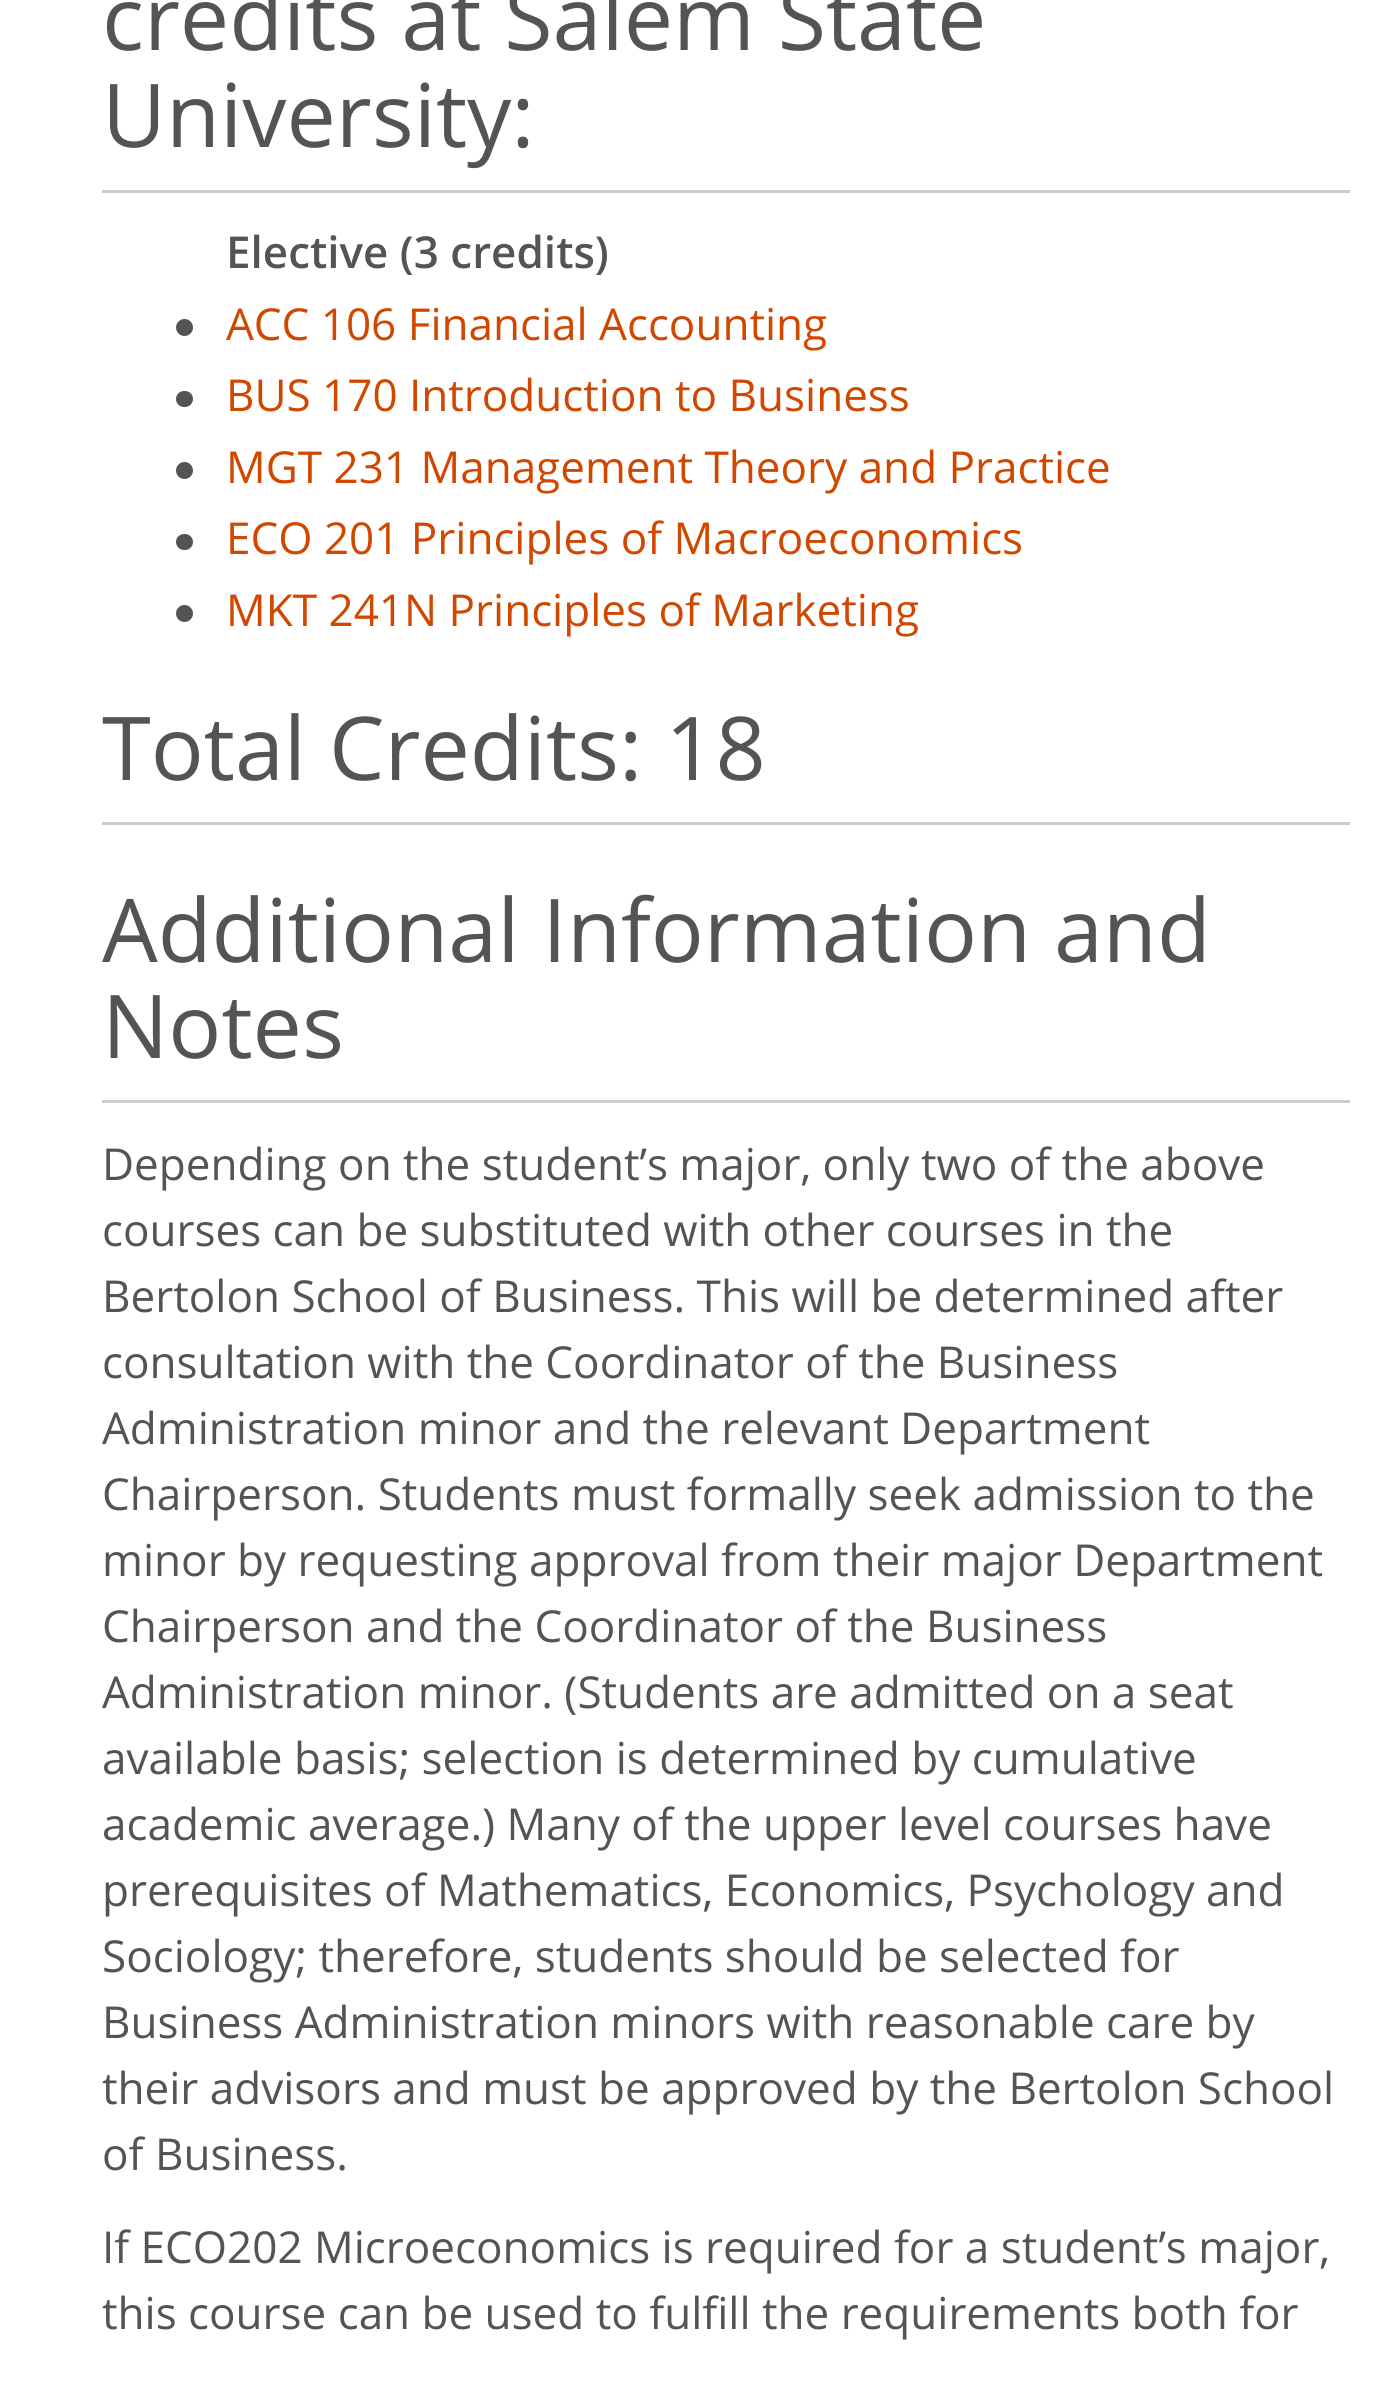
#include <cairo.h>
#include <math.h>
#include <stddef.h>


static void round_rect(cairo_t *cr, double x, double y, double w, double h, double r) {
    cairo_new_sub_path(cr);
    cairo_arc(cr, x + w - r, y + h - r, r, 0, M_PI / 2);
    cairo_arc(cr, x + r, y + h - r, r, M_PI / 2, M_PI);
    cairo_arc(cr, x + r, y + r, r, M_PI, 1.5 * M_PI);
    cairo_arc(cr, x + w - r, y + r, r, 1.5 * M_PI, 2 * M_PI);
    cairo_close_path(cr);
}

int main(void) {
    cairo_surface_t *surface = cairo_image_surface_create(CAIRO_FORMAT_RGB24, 1397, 2385);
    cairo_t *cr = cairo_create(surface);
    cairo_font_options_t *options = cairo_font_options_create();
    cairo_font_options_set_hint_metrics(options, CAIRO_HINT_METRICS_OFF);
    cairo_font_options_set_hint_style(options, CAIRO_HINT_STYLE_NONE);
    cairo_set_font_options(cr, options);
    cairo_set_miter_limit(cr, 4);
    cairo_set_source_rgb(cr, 1, 1, 1);
    cairo_paint(cr);
    cairo_select_font_face(cr, "Open Sans", CAIRO_FONT_SLANT_NORMAL, CAIRO_FONT_WEIGHT_NORMAL);
    cairo_set_font_size(cr, 88);
    cairo_set_source_rgb(cr, 0.329, 0.329, 0.329);
    cairo_move_to(cr, 102, 50);
    cairo_show_text(cr, "credits at Salem State");
    cairo_move_to(cr, 102, 147);
    cairo_show_text(cr, "University:");
    cairo_set_source_rgb(cr, 0.8, 0.8, 0.8);
    cairo_rectangle(cr, 102, 190, 1248, 3);
    cairo_fill(cr);
    cairo_select_font_face(cr, "Open Sans SemiBold", CAIRO_FONT_SLANT_NORMAL, CAIRO_FONT_WEIGHT_NORMAL);
    cairo_set_font_size(cr, 44);
    cairo_set_source_rgb(cr, 0.329, 0.329, 0.329);
    cairo_move_to(cr, 226, 268);
    cairo_show_text(cr, "Elective (3 credits)");
    cairo_new_path(cr);
    cairo_arc(cr, 184.5, 327.5, 8.5, 0, 2 * M_PI);
    cairo_fill(cr);
    cairo_select_font_face(cr, "Open Sans", CAIRO_FONT_SLANT_NORMAL, CAIRO_FONT_WEIGHT_NORMAL);
    cairo_set_source_rgb(cr, 0.824, 0.278, 0);
    cairo_move_to(cr, 226, 340);
    cairo_show_text(cr, "ACC 106 Financial Accounting");
    cairo_set_source_rgb(cr, 0.329, 0.329, 0.329);
    round_rect(cr, 176, 391, 17, 16, 8);
    cairo_fill(cr);
    cairo_set_source_rgb(cr, 0.824, 0.278, 0);
    cairo_move_to(cr, 226, 411);
    cairo_show_text(cr, "BUS 170 Introduction to Business");
    cairo_set_source_rgb(cr, 0.329, 0.329, 0.329);
    cairo_new_path(cr);
    cairo_arc(cr, 184.5, 470.5, 8.5, 0, 2 * M_PI);
    cairo_fill(cr);
    cairo_set_source_rgb(cr, 0.824, 0.278, 0);
    cairo_move_to(cr, 226, 483);
    cairo_show_text(cr, "MGT 231 Management Theory and Practice");
    cairo_set_source_rgb(cr, 0.329, 0.329, 0.329);
    round_rect(cr, 176, 534, 17, 16, 8);
    cairo_fill(cr);
    cairo_set_source_rgb(cr, 0.824, 0.278, 0);
    cairo_move_to(cr, 226, 554);
    cairo_show_text(cr, "ECO 201 Principles of Macroeconomics");
    cairo_set_source_rgb(cr, 0.329, 0.329, 0.329);
    cairo_new_path(cr);
    cairo_arc(cr, 184.5, 613.5, 8.5, 0, 2 * M_PI);
    cairo_fill(cr);
    cairo_set_source_rgb(cr, 0.824, 0.278, 0);
    cairo_move_to(cr, 226, 626);
    cairo_show_text(cr, "MKT 241N Principles of Marketing");
    cairo_set_font_size(cr, 88);
    cairo_set_source_rgb(cr, 0.329, 0.329, 0.329);
    cairo_move_to(cr, 102, 780);
    cairo_show_text(cr, "Total Credits: 18");
    cairo_set_source_rgb(cr, 0.8, 0.8, 0.8);
    cairo_rectangle(cr, 102, 822, 1248, 3);
    cairo_fill(cr);
    cairo_set_source_rgb(cr, 0.329, 0.329, 0.329);
    cairo_move_to(cr, 102, 962);
    cairo_show_text(cr, "Additional Information and");
    cairo_move_to(cr, 102, 1058);
    cairo_show_text(cr, "Notes");
    cairo_set_source_rgb(cr, 0.8, 0.8, 0.8);
    cairo_rectangle(cr, 102, 1100, 1248, 3);
    cairo_fill(cr);
    cairo_set_font_size(cr, 44);
    cairo_set_source_rgb(cr, 0.329, 0.329, 0.329);
    cairo_move_to(cr, 102, 1180);
    cairo_show_text(cr, "Depending on the student’s major, only two of the above");
    cairo_move_to(cr, 102, 1246);
    cairo_show_text(cr, "courses can be substituted with other courses in the");
    cairo_move_to(cr, 102, 1312);
    cairo_show_text(cr, "Bertolon School of Business. This will be determined after");
    cairo_move_to(cr, 102, 1378);
    cairo_show_text(cr, "consultation with the Coordinator of the Business");
    cairo_move_to(cr, 102, 1444);
    cairo_show_text(cr, "Administration minor and the relevant Department");
    cairo_move_to(cr, 102, 1510);
    cairo_show_text(cr, "Chairperson. Students must formally seek admission to the");
    cairo_move_to(cr, 102, 1576);
    cairo_show_text(cr, "minor by requesting approval from their major Department");
    cairo_move_to(cr, 102, 1642);
    cairo_show_text(cr, "Chairperson and the Coordinator of the Business");
    cairo_move_to(cr, 102, 1708);
    cairo_show_text(cr, "Administration minor. (Students are admitted on a seat");
    cairo_move_to(cr, 102, 1774);
    cairo_show_text(cr, "available basis; selection is determined by cumulative");
    cairo_move_to(cr, 102, 1840);
    cairo_show_text(cr, "academic average.) Many of the upper level courses have");
    cairo_move_to(cr, 102, 1906);
    cairo_show_text(cr, "prerequisites of Mathematics, Economics, Psychology and");
    cairo_move_to(cr, 102, 1972);
    cairo_show_text(cr, "Sociology; therefore, students should be selected for");
    cairo_move_to(cr, 102, 2038);
    cairo_show_text(cr, "Business Administration minors with reasonable care by");
    cairo_move_to(cr, 102, 2104);
    cairo_show_text(cr, "their advisors and must be approved by the Bertolon School");
    cairo_move_to(cr, 102, 2170);
    cairo_show_text(cr, "of Business.");
    cairo_move_to(cr, 102, 2263);
    cairo_show_text(cr, "If ECO202 Microeconomics is required for a student’s major,");
    cairo_move_to(cr, 102, 2329);
    cairo_show_text(cr, "this course can be used to fulfill the requirements both for");
    cairo_surface_write_to_png(surface, "page.png");
    cairo_font_options_destroy(options);
    cairo_destroy(cr);
    cairo_surface_destroy(surface);
    return 0;
}
